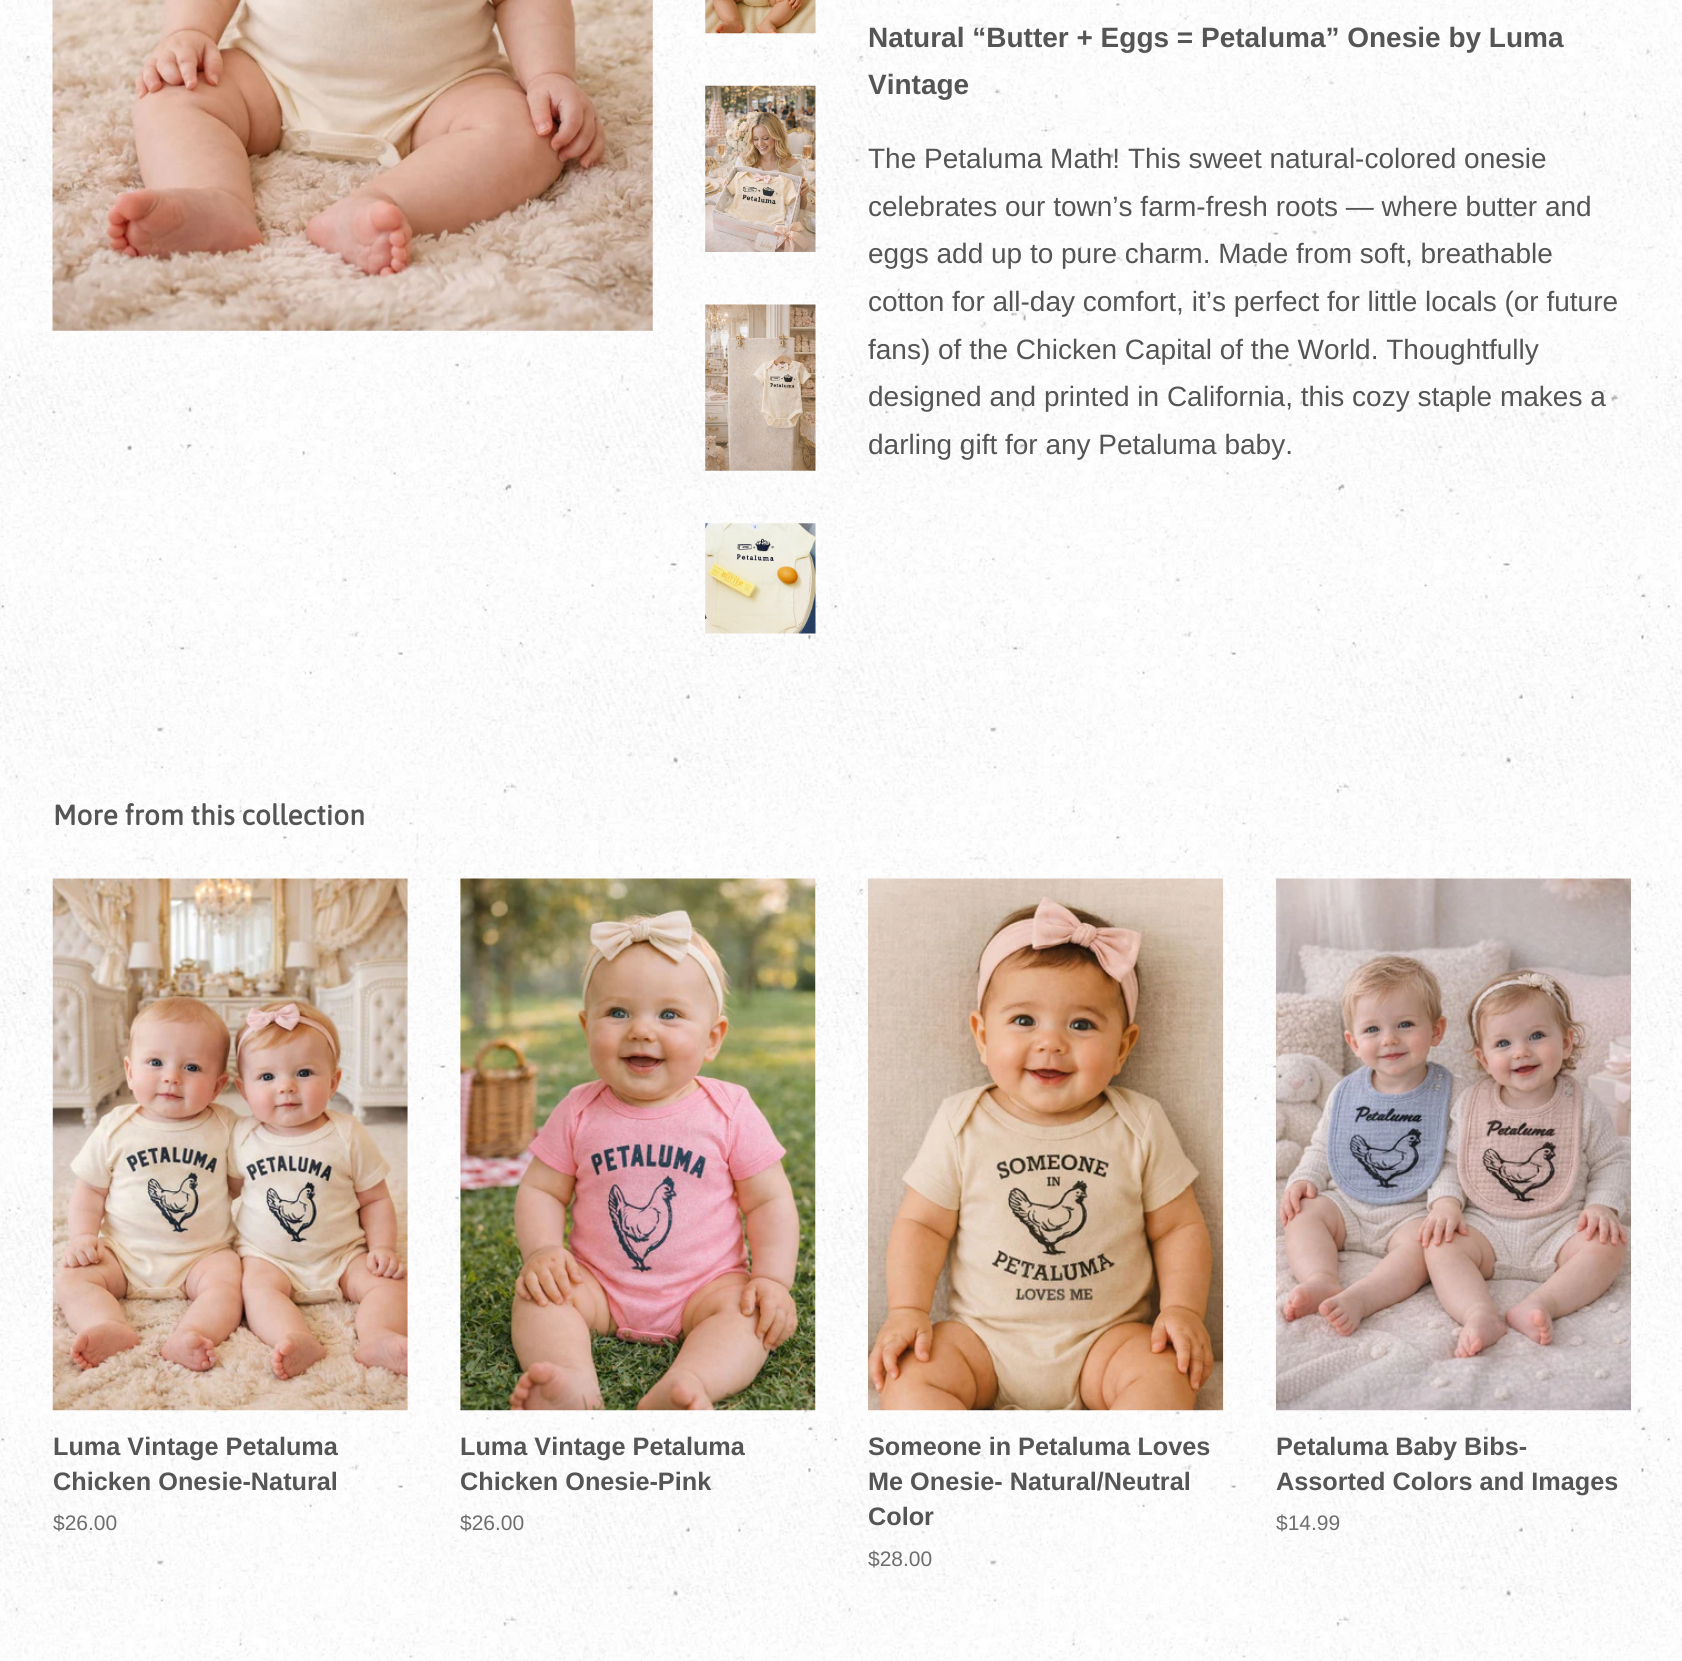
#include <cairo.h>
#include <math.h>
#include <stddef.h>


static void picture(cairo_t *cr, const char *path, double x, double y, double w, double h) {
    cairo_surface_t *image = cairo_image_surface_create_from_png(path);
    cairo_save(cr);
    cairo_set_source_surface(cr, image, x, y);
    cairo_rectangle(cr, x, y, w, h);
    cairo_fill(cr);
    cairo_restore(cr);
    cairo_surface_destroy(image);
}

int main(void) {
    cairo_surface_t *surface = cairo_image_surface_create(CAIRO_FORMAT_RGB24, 1682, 1661);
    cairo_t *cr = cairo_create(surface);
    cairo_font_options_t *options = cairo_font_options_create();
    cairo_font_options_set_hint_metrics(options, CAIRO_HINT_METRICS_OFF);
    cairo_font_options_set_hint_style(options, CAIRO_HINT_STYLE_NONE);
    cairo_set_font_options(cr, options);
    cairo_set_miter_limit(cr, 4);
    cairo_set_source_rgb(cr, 1, 1, 1);
    cairo_paint(cr);
    picture(cr, "img1.png", 0, 0, 1682, 1661);
    picture(cr, "img2.png", 52, 0, 601, 331);
    picture(cr, "img3.png", 705, 0, 111, 34);
    picture(cr, "img4.png", 705, 85, 111, 167);
    picture(cr, "img5.png", 705, 304, 111, 167);
    picture(cr, "img6.png", 705, 523, 111, 111);
    cairo_select_font_face(cr, "Liberation Sans", CAIRO_FONT_SLANT_NORMAL, CAIRO_FONT_WEIGHT_BOLD);
    cairo_set_font_size(cr, 28);
    cairo_set_source_rgb(cr, 0.333, 0.333, 0.333);
    cairo_move_to(cr, 868, 47);
    cairo_show_text(cr, "Natural “Butter + Eggs = Petaluma” Onesie by Luma");
    cairo_move_to(cr, 868, 94);
    cairo_show_text(cr, "Vintage");
    cairo_select_font_face(cr, "Liberation Sans", CAIRO_FONT_SLANT_NORMAL, CAIRO_FONT_WEIGHT_NORMAL);
    cairo_move_to(cr, 868, 168);
    cairo_show_text(cr, "The Petaluma Math! This sweet natural-colored onesie");
    cairo_move_to(cr, 868, 216);
    cairo_show_text(cr, "celebrates our town’s farm-fresh roots — where butter and");
    cairo_move_to(cr, 868, 263);
    cairo_show_text(cr, "eggs add up to pure charm. Made from soft, breathable");
    cairo_move_to(cr, 868, 311);
    cairo_show_text(cr, "cotton for all-day comfort, it’s perfect for little locals (or future");
    cairo_move_to(cr, 868, 359);
    cairo_show_text(cr, "fans) of the Chicken Capital of the World. Thoughtfully");
    cairo_move_to(cr, 868, 406);
    cairo_show_text(cr, "designed and printed in California, this cozy staple makes a");
    cairo_move_to(cr, 868, 454);
    cairo_show_text(cr, "darling gift for any Petaluma baby.");
    cairo_select_font_face(cr, "Asap", CAIRO_FONT_SLANT_NORMAL, CAIRO_FONT_WEIGHT_BOLD);
    cairo_move_to(cr, 53, 825);
    cairo_show_text(cr, "More from this collection");
    picture(cr, "img7.png", 52, 878, 356, 533);
    cairo_select_font_face(cr, "Liberation Sans", CAIRO_FONT_SLANT_NORMAL, CAIRO_FONT_WEIGHT_BOLD);
    cairo_set_font_size(cr, 25.25);
    cairo_move_to(cr, 53, 1455);
    cairo_show_text(cr, "Luma Vintage Petaluma");
    cairo_move_to(cr, 53, 1490);
    cairo_show_text(cr, "Chicken Onesie-Natural");
    cairo_select_font_face(cr, "Liberation Sans", CAIRO_FONT_SLANT_NORMAL, CAIRO_FONT_WEIGHT_NORMAL);
    cairo_set_font_size(cr, 21);
    cairo_set_source_rgb(cr, 0.431, 0.431, 0.431);
    cairo_move_to(cr, 53, 1530);
    cairo_show_text(cr, "$26.00");
    picture(cr, "img8.png", 460, 878, 356, 533);
    cairo_select_font_face(cr, "Liberation Sans", CAIRO_FONT_SLANT_NORMAL, CAIRO_FONT_WEIGHT_BOLD);
    cairo_set_font_size(cr, 25.25);
    cairo_set_source_rgb(cr, 0.333, 0.333, 0.333);
    cairo_move_to(cr, 460, 1455);
    cairo_show_text(cr, "Luma Vintage Petaluma");
    cairo_move_to(cr, 460, 1490);
    cairo_show_text(cr, "Chicken Onesie-Pink");
    cairo_select_font_face(cr, "Liberation Sans", CAIRO_FONT_SLANT_NORMAL, CAIRO_FONT_WEIGHT_NORMAL);
    cairo_set_font_size(cr, 21);
    cairo_set_source_rgb(cr, 0.431, 0.431, 0.431);
    cairo_move_to(cr, 460, 1530);
    cairo_show_text(cr, "$26.00");
    picture(cr, "img9.png", 868, 878, 356, 533);
    cairo_select_font_face(cr, "Liberation Sans", CAIRO_FONT_SLANT_NORMAL, CAIRO_FONT_WEIGHT_BOLD);
    cairo_set_font_size(cr, 25.25);
    cairo_set_source_rgb(cr, 0.333, 0.333, 0.333);
    cairo_move_to(cr, 868, 1455);
    cairo_show_text(cr, "Someone in Petaluma Loves");
    cairo_move_to(cr, 868, 1490);
    cairo_show_text(cr, "Me Onesie- Natural/Neutral");
    cairo_move_to(cr, 868, 1525);
    cairo_show_text(cr, "Color");
    cairo_select_font_face(cr, "Liberation Sans", CAIRO_FONT_SLANT_NORMAL, CAIRO_FONT_WEIGHT_NORMAL);
    cairo_set_font_size(cr, 21);
    cairo_set_source_rgb(cr, 0.431, 0.431, 0.431);
    cairo_move_to(cr, 868, 1566);
    cairo_show_text(cr, "$28.00");
    picture(cr, "img10.png", 1275, 878, 356, 533);
    cairo_select_font_face(cr, "Liberation Sans", CAIRO_FONT_SLANT_NORMAL, CAIRO_FONT_WEIGHT_BOLD);
    cairo_set_font_size(cr, 25.25);
    cairo_set_source_rgb(cr, 0.333, 0.333, 0.333);
    cairo_move_to(cr, 1276, 1455);
    cairo_show_text(cr, "Petaluma Baby Bibs-");
    cairo_move_to(cr, 1276, 1490);
    cairo_show_text(cr, "Assorted Colors and Images");
    cairo_select_font_face(cr, "Liberation Sans", CAIRO_FONT_SLANT_NORMAL, CAIRO_FONT_WEIGHT_NORMAL);
    cairo_set_font_size(cr, 21);
    cairo_set_source_rgb(cr, 0.431, 0.431, 0.431);
    cairo_move_to(cr, 1276, 1530);
    cairo_show_text(cr, "$14.99");
    cairo_surface_write_to_png(surface, "page.png");
    cairo_font_options_destroy(options);
    cairo_destroy(cr);
    cairo_surface_destroy(surface);
    return 0;
}
